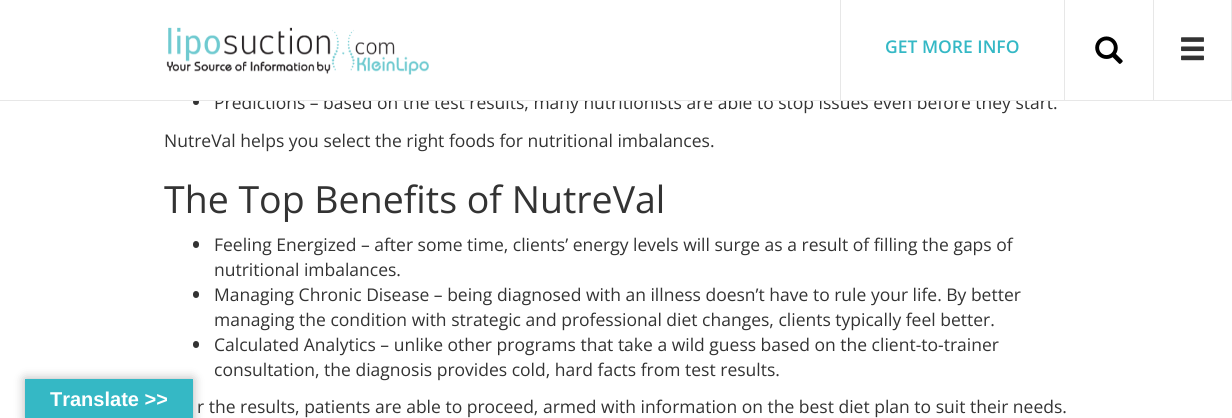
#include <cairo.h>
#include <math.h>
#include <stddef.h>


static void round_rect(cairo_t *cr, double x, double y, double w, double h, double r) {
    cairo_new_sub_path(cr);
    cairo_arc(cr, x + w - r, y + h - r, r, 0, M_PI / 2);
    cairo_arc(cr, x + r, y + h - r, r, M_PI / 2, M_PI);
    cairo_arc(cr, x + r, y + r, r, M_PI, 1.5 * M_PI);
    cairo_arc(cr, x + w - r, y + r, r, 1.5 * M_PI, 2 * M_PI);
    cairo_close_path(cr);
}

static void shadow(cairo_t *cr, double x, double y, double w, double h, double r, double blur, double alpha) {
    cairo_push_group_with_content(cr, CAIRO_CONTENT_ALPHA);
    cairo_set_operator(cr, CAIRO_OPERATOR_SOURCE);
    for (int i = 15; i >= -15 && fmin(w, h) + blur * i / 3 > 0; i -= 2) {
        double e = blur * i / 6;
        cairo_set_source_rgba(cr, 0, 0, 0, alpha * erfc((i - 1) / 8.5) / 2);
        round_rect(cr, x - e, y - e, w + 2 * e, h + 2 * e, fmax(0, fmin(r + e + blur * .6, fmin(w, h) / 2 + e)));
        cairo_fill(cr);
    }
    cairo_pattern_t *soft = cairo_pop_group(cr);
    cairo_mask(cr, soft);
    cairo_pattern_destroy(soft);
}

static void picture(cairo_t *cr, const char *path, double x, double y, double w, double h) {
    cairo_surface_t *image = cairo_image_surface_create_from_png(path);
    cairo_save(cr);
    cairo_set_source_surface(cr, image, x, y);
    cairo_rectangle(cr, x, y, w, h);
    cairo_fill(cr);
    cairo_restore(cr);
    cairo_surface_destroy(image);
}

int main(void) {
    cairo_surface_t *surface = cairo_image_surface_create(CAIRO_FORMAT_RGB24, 1232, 418);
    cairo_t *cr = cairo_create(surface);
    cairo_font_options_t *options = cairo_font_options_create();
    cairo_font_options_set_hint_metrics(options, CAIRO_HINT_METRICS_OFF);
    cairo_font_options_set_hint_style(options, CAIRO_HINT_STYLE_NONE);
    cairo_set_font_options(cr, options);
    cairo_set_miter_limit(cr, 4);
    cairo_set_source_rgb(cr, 1, 1, 1);
    cairo_paint(cr);
    cairo_set_source_rgb(cr, 0.2, 0.2, 0.2);
    cairo_arc(cr, 196, 102, 3, 0, 2 * M_PI);
    cairo_fill(cr);
    cairo_select_font_face(cr, "Open Sans", CAIRO_FONT_SLANT_NORMAL, CAIRO_FONT_WEIGHT_NORMAL);
    cairo_set_font_size(cr, 17.5);
    cairo_move_to(cr, 214, 109);
    cairo_show_text(cr, "Predictions – based on the test results, many nutritionists are able to stop issues even before they start.");
    cairo_set_source_rgb(cr, 1, 1, 1);
    cairo_rectangle(cr, 193, 95, 860, 5);
    cairo_fill(cr);
    cairo_set_source_rgb(cr, 0.906, 0.906, 0.906);
    cairo_rectangle(cr, 0, 100, 1232, 1);
    cairo_fill(cr);
    picture(cr, "img1.png", 166, 27, 263, 48);
    cairo_rectangle(cr, 1064, 0, 1, 100);
    cairo_fill(cr);
    cairo_rectangle(cr, 840, 0, 1, 100);
    cairo_fill(cr);
    cairo_select_font_face(cr, "Open Sans SemiBold", CAIRO_FONT_SLANT_NORMAL, CAIRO_FONT_WEIGHT_NORMAL);
    cairo_set_source_rgb(cr, 0.204, 0.722, 0.773);
    cairo_move_to(cr, 885, 53);
    cairo_show_text(cr, "GET MORE INFO");
    cairo_set_source_rgb(cr, 0.906, 0.906, 0.906);
    cairo_rectangle(cr, 1153, 0, 1, 100);
    cairo_fill(cr);
    picture(cr, "img2.png", 1095, 36, 28, 28);
    cairo_rectangle(cr, 1231, 0, 1, 100);
    cairo_fill(cr);
    picture(cr, "img3.png", 1181, 37, 23, 24);
    cairo_set_source_rgb(cr, 0, 0, 0);
    shadow(cr, 25, 379, 168, 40, 0, 5.5, 0.3);
    cairo_set_source_rgb(cr, 0.208, 0.722, 0.773);
    cairo_rectangle(cr, 25, 379, 168, 39);
    cairo_fill(cr);
    cairo_select_font_face(cr, "Liberation Sans", CAIRO_FONT_SLANT_NORMAL, CAIRO_FONT_WEIGHT_BOLD);
    cairo_set_font_size(cr, 20);
    cairo_set_source_rgb(cr, 1, 1, 1);
    cairo_move_to(cr, 50, 406);
    cairo_show_text(cr, "Translate >>");
    cairo_select_font_face(cr, "Open Sans", CAIRO_FONT_SLANT_NORMAL, CAIRO_FONT_WEIGHT_NORMAL);
    cairo_set_font_size(cr, 17.5);
    cairo_set_source_rgb(cr, 0.2, 0.2, 0.2);
    cairo_move_to(cr, 164, 147);
    cairo_show_text(cr, "NutreVal helps you select the right foods for nutritional imbalances.");
    cairo_set_font_size(cr, 37.5);
    cairo_move_to(cr, 164, 213);
    cairo_show_text(cr, "The Top Benefits of NutreVal");
    round_rect(cr, 193, 241, 6, 7, 3);
    cairo_fill(cr);
    cairo_set_font_size(cr, 17.5);
    cairo_move_to(cr, 214, 251);
    cairo_show_text(cr, "Feeling Energized – after some time, clients’ energy levels will surge as a result of filling the gaps of");
    cairo_move_to(cr, 214, 276);
    cairo_show_text(cr, "nutritional imbalances.");
    round_rect(cr, 193, 291, 6, 7, 3);
    cairo_fill(cr);
    cairo_move_to(cr, 214, 301);
    cairo_show_text(cr, "Managing Chronic Disease – being diagnosed with an illness doesn’t have to rule your life. By better");
    cairo_move_to(cr, 214, 326);
    cairo_show_text(cr, "managing the condition with strategic and professional diet changes, clients typically feel better.");
    round_rect(cr, 193, 341, 6, 7, 3);
    cairo_fill(cr);
    cairo_move_to(cr, 214, 351);
    cairo_show_text(cr, "Calculated Analytics – unlike other programs that take a wild guess based on the client-to-trainer");
    cairo_move_to(cr, 214, 376);
    cairo_show_text(cr, "consultation, the diagnosis provides cold, hard facts from test results.");
    cairo_move_to(cr, 197, 413);
    cairo_show_text(cr, "r the results, patients are able to proceed, armed with information on the best diet plan to suit their needs.");
    cairo_surface_write_to_png(surface, "page.png");
    cairo_font_options_destroy(options);
    cairo_destroy(cr);
    cairo_surface_destroy(surface);
    return 0;
}
